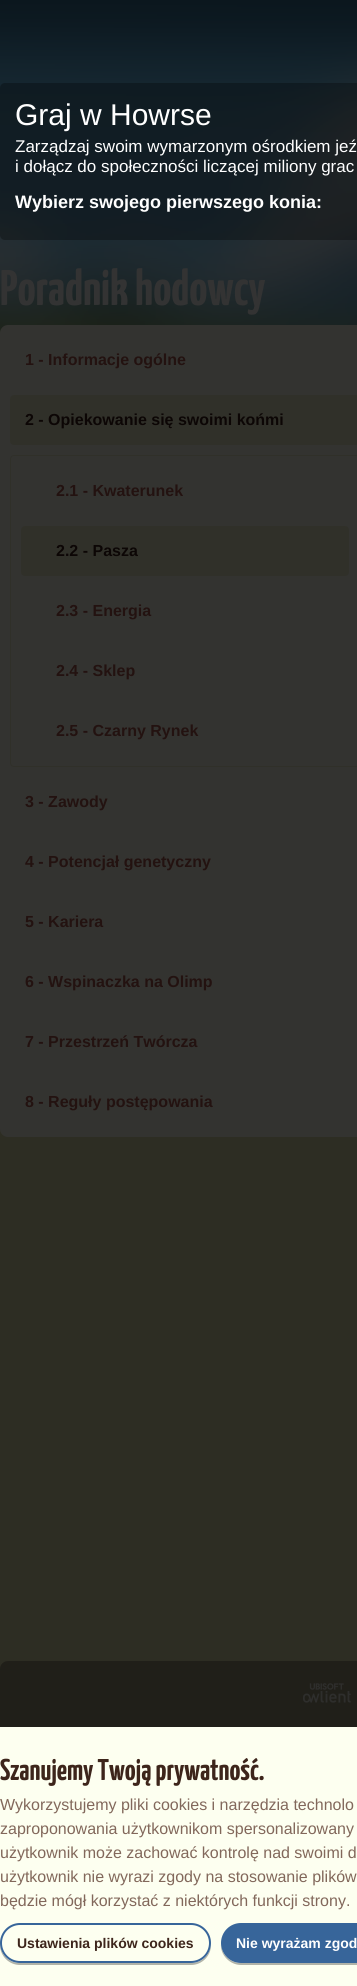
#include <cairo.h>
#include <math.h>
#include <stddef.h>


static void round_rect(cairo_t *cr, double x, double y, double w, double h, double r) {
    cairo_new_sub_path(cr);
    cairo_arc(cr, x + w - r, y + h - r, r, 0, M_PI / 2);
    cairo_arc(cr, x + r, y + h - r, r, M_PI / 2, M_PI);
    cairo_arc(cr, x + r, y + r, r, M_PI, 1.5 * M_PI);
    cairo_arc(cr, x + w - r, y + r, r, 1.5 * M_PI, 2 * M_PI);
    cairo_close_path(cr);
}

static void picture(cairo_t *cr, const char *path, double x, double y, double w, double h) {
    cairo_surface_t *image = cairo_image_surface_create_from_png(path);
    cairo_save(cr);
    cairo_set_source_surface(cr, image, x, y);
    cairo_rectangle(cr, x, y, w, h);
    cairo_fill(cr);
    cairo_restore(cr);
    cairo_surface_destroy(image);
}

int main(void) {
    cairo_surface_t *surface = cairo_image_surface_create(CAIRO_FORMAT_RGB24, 357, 1986);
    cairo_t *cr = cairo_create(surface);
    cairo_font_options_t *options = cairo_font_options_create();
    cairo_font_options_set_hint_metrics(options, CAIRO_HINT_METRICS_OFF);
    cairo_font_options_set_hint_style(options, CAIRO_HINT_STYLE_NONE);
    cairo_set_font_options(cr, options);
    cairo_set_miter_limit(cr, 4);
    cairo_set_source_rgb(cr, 0.176, 0.176, 0.137);
    cairo_paint(cr);
    picture(cr, "img1.png", 0, 0, 357, 333);
    cairo_set_source_rgba(cr, 0, 0, 0, 0.3);
    round_rect(cr, 0, 83, 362, 157, 5);
    cairo_fill(cr);
    cairo_select_font_face(cr, "Liberation Sans", CAIRO_FONT_SLANT_NORMAL, CAIRO_FONT_WEIGHT_NORMAL);
    cairo_set_font_size(cr, 30);
    cairo_set_source_rgb(cr, 1, 1, 1);
    cairo_move_to(cr, 15, 125);
    cairo_show_text(cr, "Graj w Howrse");
    cairo_set_font_size(cr, 17);
    cairo_move_to(cr, 15, 152);
    cairo_show_text(cr, "Zarządzaj swoim wymarzonym ośrodkiem jeź");
    cairo_move_to(cr, 15, 172);
    cairo_show_text(cr, "i dołącz do społeczności liczącej miliony grac");
    cairo_select_font_face(cr, "Liberation Sans", CAIRO_FONT_SLANT_NORMAL, CAIRO_FONT_WEIGHT_BOLD);
    cairo_set_font_size(cr, 18);
    cairo_move_to(cr, 15, 208);
    cairo_show_text(cr, "Wybierz swojego pierwszego konia:");
    cairo_select_font_face(cr, "Yanone Kaffeesatz", CAIRO_FONT_SLANT_NORMAL, CAIRO_FONT_WEIGHT_BOLD);
    cairo_set_font_size(cr, 50);
    cairo_set_source_rgb(cr, 0.2, 0.2, 0.2);
    cairo_move_to(cr, 0, 305);
    cairo_show_text(cr, "Poradnik hodowcy");
    cairo_set_source_rgb(cr, 0.2, 0.2, 0.188);
    round_rect(cr, 0, 325, 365, 812, 8);
    cairo_fill(cr);
    cairo_select_font_face(cr, "Liberation Sans", CAIRO_FONT_SLANT_NORMAL, CAIRO_FONT_WEIGHT_BOLD);
    cairo_set_font_size(cr, 16);
    cairo_set_source_rgb(cr, 0.137, 0.071, 0.063);
    cairo_move_to(cr, 25, 365);
    cairo_show_text(cr, "1 - Informacje ogólne");
    cairo_set_source_rgb(cr, 0.188, 0.188, 0.161);
    round_rect(cr, 10, 395, 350, 50, 4);
    cairo_fill(cr);
    cairo_set_source_rgb(cr, 0.047, 0.027, 0.02);
    cairo_move_to(cr, 25, 425);
    cairo_show_text(cr, "2 - Opiekowanie się swoimi końmi");
    cairo_set_source_rgb(cr, 0.188, 0.188, 0.161);
    round_rect(cr, 21, 526, 328, 50, 4);
    cairo_fill(cr);
    round_rect(cr, 10.5, 455.5, 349, 311, 3.5);
    cairo_set_line_width(cr, 1);
    cairo_stroke(cr);
    cairo_set_source_rgb(cr, 0.137, 0.071, 0.063);
    cairo_move_to(cr, 56, 496);
    cairo_show_text(cr, "2.1 - Kwaterunek");
    cairo_set_source_rgb(cr, 0.047, 0.027, 0.02);
    cairo_move_to(cr, 56, 556);
    cairo_show_text(cr, "2.2 - Pasza");
    cairo_set_source_rgb(cr, 0.137, 0.071, 0.063);
    cairo_move_to(cr, 56, 616);
    cairo_show_text(cr, "2.3 - Energia");
    cairo_move_to(cr, 56, 676);
    cairo_show_text(cr, "2.4 - Sklep");
    cairo_move_to(cr, 56, 736);
    cairo_show_text(cr, "2.5 - Czarny Rynek");
    cairo_move_to(cr, 25, 807);
    cairo_show_text(cr, "3 - Zawody");
    cairo_move_to(cr, 25, 867);
    cairo_show_text(cr, "4 - Potencjał genetyczny");
    cairo_move_to(cr, 25, 927);
    cairo_show_text(cr, "5 - Kariera");
    cairo_move_to(cr, 25, 987);
    cairo_show_text(cr, "6 - Wspinaczka na Olimp");
    cairo_move_to(cr, 25, 1047);
    cairo_show_text(cr, "7 - Przestrzeń Twórcza");
    cairo_move_to(cr, 25, 1107);
    cairo_show_text(cr, "8 - Reguły postępowania");
    cairo_set_source_rgb(cr, 0.125, 0.122, 0.098);
    round_rect(cr, 0, 1661, 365, 95, 8);
    cairo_fill(cr);
    cairo_set_source_rgb(cr, 0.992, 1, 0.941);
    cairo_rectangle(cr, 0, 1727, 357, 259);
    cairo_fill(cr);
    cairo_select_font_face(cr, "Yanone Kaffeesatz", CAIRO_FONT_SLANT_NORMAL, CAIRO_FONT_WEIGHT_BOLD);
    cairo_set_font_size(cr, 30);
    cairo_set_source_rgb(cr, 0.239, 0.145, 0.106);
    cairo_move_to(cr, 0, 1780);
    cairo_show_text(cr, "Szanujemy Twoją prywatność.");
    cairo_select_font_face(cr, "Liberation Sans", CAIRO_FONT_SLANT_NORMAL, CAIRO_FONT_WEIGHT_NORMAL);
    cairo_set_font_size(cr, 16);
    cairo_set_source_rgb(cr, 0.51, 0.408, 0.357);
    cairo_move_to(cr, 0, 1810);
    cairo_show_text(cr, "Wykorzystujemy pliki cookies i narzędzia technolo");
    cairo_move_to(cr, 0, 1834);
    cairo_show_text(cr, "zaproponowania użytkownikom spersonalizowany");
    cairo_move_to(cr, 0, 1858);
    cairo_show_text(cr, "użytkownik może zachować kontrolę nad swoimi d");
    cairo_move_to(cr, 0, 1882);
    cairo_show_text(cr, "użytkownik nie wyrazi zgody na stosowanie plików");
    cairo_move_to(cr, 0, 1906);
    cairo_show_text(cr, "będzie mógł korzystać z niektórych funkcji strony.");
    cairo_set_source_rgb(cr, 0.694, 0.702, 0.659);
    cairo_new_path(cr);
    cairo_move_to(cr, 0, 1944);
    cairo_line_to(cr, 0, 1945);
    cairo_curve_to(cr, 0, 1956, 9, 1965, 20, 1965);
    cairo_line_to(cr, 191, 1965);
    cairo_curve_to(cr, 202, 1965, 211, 1956, 211, 1945);
    cairo_line_to(cr, 211, 1944);
    cairo_curve_to(cr, 210, 1955, 202, 1963, 191, 1963);
    cairo_line_to(cr, 20, 1963);
    cairo_curve_to(cr, 9, 1963, 1, 1955, 0, 1944);
    cairo_close_path(cr);
    cairo_fill(cr);
    cairo_set_source_rgb(cr, 0.992, 1, 0.941);
    round_rect(cr, 1, 1924, 209, 38, 19);
    cairo_fill_preserve(cr);
    cairo_set_source_rgb(cr, 0.216, 0.396, 0.604);
    cairo_set_line_width(cr, 2);
    cairo_stroke(cr);
    cairo_select_font_face(cr, "Liberation Sans", CAIRO_FONT_SLANT_NORMAL, CAIRO_FONT_WEIGHT_BOLD);
    cairo_set_font_size(cr, 14);
    cairo_set_source_rgb(cr, 0.239, 0.145, 0.106);
    cairo_move_to(cr, 17, 1948);
    cairo_show_text(cr, "Ustawienia plików cookies");
    cairo_set_source_rgb(cr, 0.694, 0.702, 0.659);
    cairo_new_path(cr);
    cairo_move_to(cr, 221, 1944);
    cairo_curve_to(cr, 220, 1955, 230, 1965, 241, 1965);
    cairo_line_to(cr, 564, 1965);
    cairo_curve_to(cr, 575, 1965, 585, 1955, 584, 1944);
    cairo_curve_to(cr, 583, 1955, 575, 1963, 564, 1963);
    cairo_line_to(cr, 241, 1963);
    cairo_curve_to(cr, 230, 1963, 222, 1955, 221, 1944);
    cairo_close_path(cr);
    cairo_fill(cr);
    cairo_set_source_rgb(cr, 0.216, 0.396, 0.604);
    round_rect(cr, 221, 1923, 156, 40, 20);
    cairo_fill(cr);
    cairo_set_source_rgb(cr, 1, 1, 1);
    cairo_move_to(cr, 236, 1948);
    cairo_show_text(cr, "Nie wyrażam zgod");
    picture(cr, "img2.png", 303, 1683, 48, 20);
    cairo_surface_write_to_png(surface, "page.png");
    cairo_font_options_destroy(options);
    cairo_destroy(cr);
    cairo_surface_destroy(surface);
    return 0;
}
